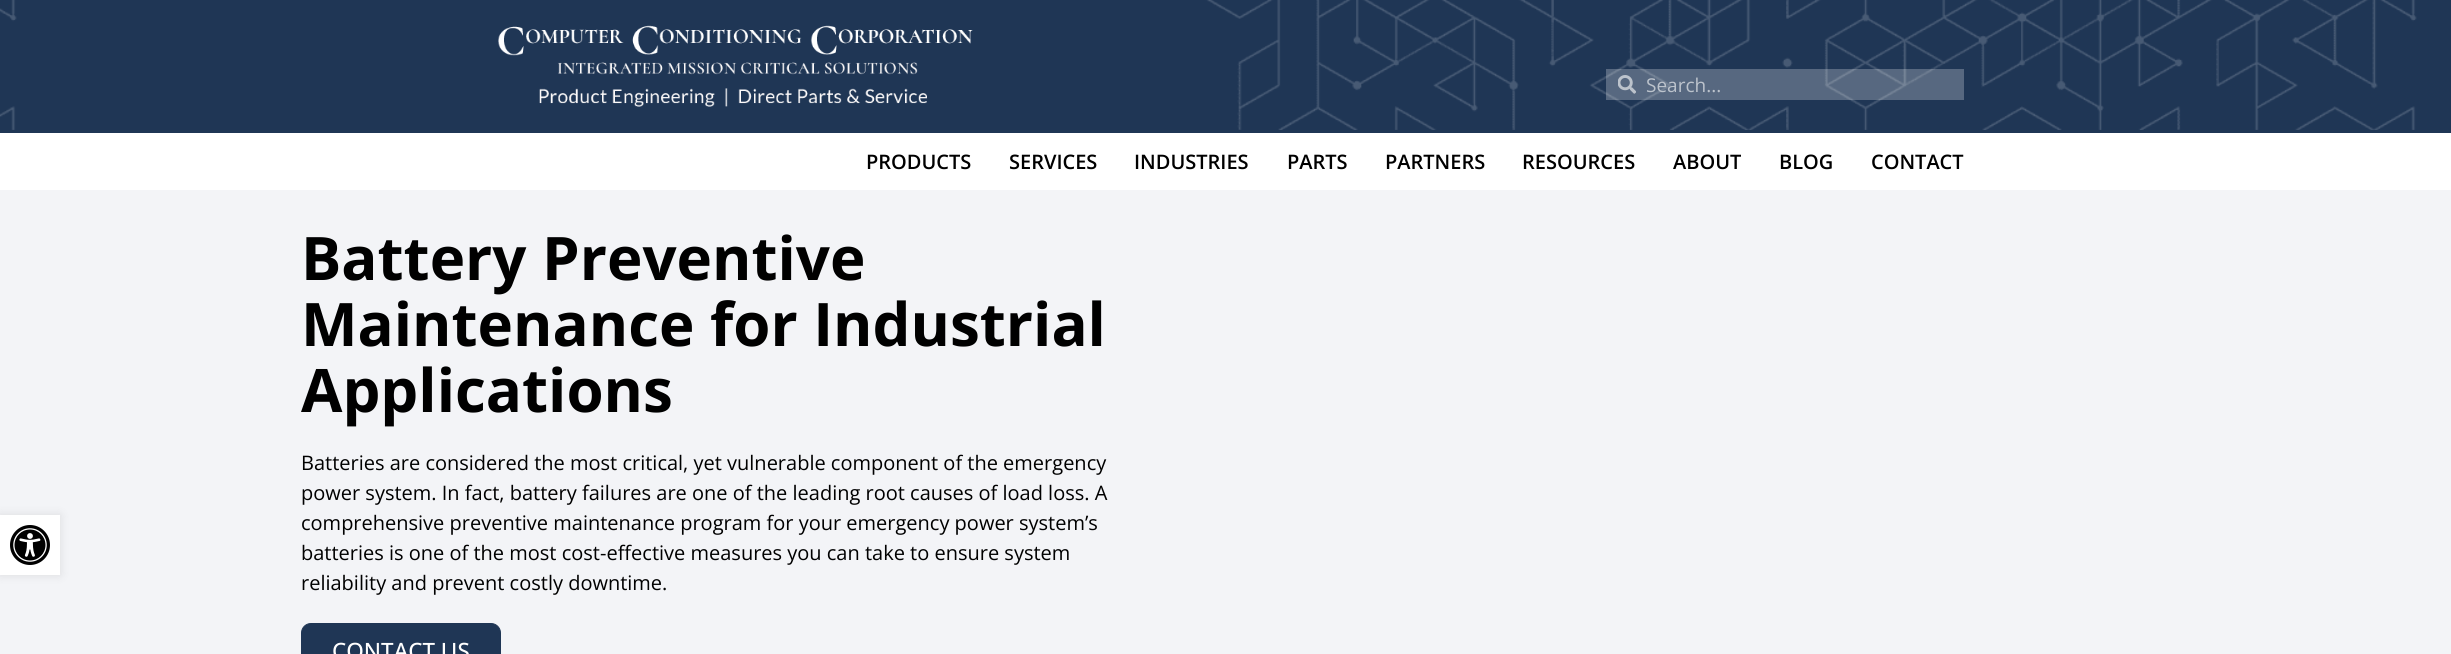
#include <cairo.h>
#include <math.h>
#include <stddef.h>


static void round_rect(cairo_t *cr, double x, double y, double w, double h, double r) {
    cairo_new_sub_path(cr);
    cairo_arc(cr, x + w - r, y + h - r, r, 0, M_PI / 2);
    cairo_arc(cr, x + r, y + h - r, r, M_PI / 2, M_PI);
    cairo_arc(cr, x + r, y + r, r, M_PI, 1.5 * M_PI);
    cairo_arc(cr, x + w - r, y + r, r, 1.5 * M_PI, 2 * M_PI);
    cairo_close_path(cr);
}

static void shadow(cairo_t *cr, double x, double y, double w, double h, double r, double blur, double alpha) {
    cairo_push_group_with_content(cr, CAIRO_CONTENT_ALPHA);
    cairo_set_operator(cr, CAIRO_OPERATOR_SOURCE);
    for (int i = 15; i >= -15 && fmin(w, h) + blur * i / 3 > 0; i -= 2) {
        double e = blur * i / 6;
        cairo_set_source_rgba(cr, 0, 0, 0, alpha * erfc((i - 1) / 8.5) / 2);
        round_rect(cr, x - e, y - e, w + 2 * e, h + 2 * e, fmax(0, fmin(r + e + blur * .6, fmin(w, h) / 2 + e)));
        cairo_fill(cr);
    }
    cairo_pattern_t *soft = cairo_pop_group(cr);
    cairo_mask(cr, soft);
    cairo_pattern_destroy(soft);
}

static void picture(cairo_t *cr, const char *path, double x, double y, double w, double h) {
    cairo_surface_t *image = cairo_image_surface_create_from_png(path);
    cairo_save(cr);
    cairo_set_source_surface(cr, image, x, y);
    cairo_rectangle(cr, x, y, w, h);
    cairo_fill(cr);
    cairo_restore(cr);
    cairo_surface_destroy(image);
}

int main(void) {
    cairo_surface_t *surface = cairo_image_surface_create(CAIRO_FORMAT_RGB24, 2451, 654);
    cairo_t *cr = cairo_create(surface);
    cairo_font_options_t *options = cairo_font_options_create();
    cairo_font_options_set_hint_metrics(options, CAIRO_HINT_METRICS_OFF);
    cairo_font_options_set_hint_style(options, CAIRO_HINT_STYLE_NONE);
    cairo_set_font_options(cr, options);
    cairo_set_miter_limit(cr, 4);
    cairo_set_source_rgb(cr, 1, 1, 1);
    cairo_paint(cr);
    cairo_set_source_rgb(cr, 0.122, 0.212, 0.333);
    cairo_rectangle(cr, 0, 0, 2451, 133);
    cairo_fill(cr);
    picture(cr, "img1.png", 0, 0, 2417, 130);
    picture(cr, "img2.png", 498, 25, 475, 82);
    cairo_set_source_rgba(cr, 1, 1, 1, 0.25);
    cairo_rectangle(cr, 1606, 69, 358, 31);
    cairo_fill(cr);
    picture(cr, "img3.png", 1618, 75, 18, 19);
    cairo_select_font_face(cr, "Open Sans", CAIRO_FONT_SLANT_NORMAL, CAIRO_FONT_WEIGHT_NORMAL);
    cairo_set_font_size(cr, 19);
    cairo_set_source_rgb(cr, 0.737, 0.765, 0.8);
    cairo_move_to(cr, 1646, 92);
    cairo_show_text(cr, "Search...");
    cairo_select_font_face(cr, "Open Sans SemiBold", CAIRO_FONT_SLANT_NORMAL, CAIRO_FONT_WEIGHT_NORMAL);
    cairo_set_font_size(cr, 20);
    cairo_set_source_rgb(cr, 0, 0, 0);
    cairo_move_to(cr, 866, 169);
    cairo_show_text(cr, "PRODUCTS");
    cairo_move_to(cr, 1009, 169);
    cairo_show_text(cr, "SERVICES");
    cairo_move_to(cr, 1134, 169);
    cairo_show_text(cr, "INDUSTRIES");
    cairo_move_to(cr, 1287, 169);
    cairo_show_text(cr, "PARTS");
    cairo_move_to(cr, 1385, 169);
    cairo_show_text(cr, "PARTNERS");
    cairo_move_to(cr, 1522, 169);
    cairo_show_text(cr, "RESOURCES");
    cairo_move_to(cr, 1673, 169);
    cairo_show_text(cr, "ABOUT");
    cairo_move_to(cr, 1779, 169);
    cairo_show_text(cr, "BLOG");
    cairo_move_to(cr, 1871, 169);
    cairo_show_text(cr, "CONTACT");
    cairo_set_source_rgb(cr, 0.953, 0.957, 0.965);
    cairo_rectangle(cr, 0, 190, 2451, 464);
    cairo_fill(cr);
    cairo_set_source_rgb(cr, 0, 0, 0);
    shadow(cr, 0, 515, 60, 60, 0, 5, 0.1);
    cairo_set_source_rgb(cr, 1, 1, 1);
    cairo_rectangle(cr, 0, 515, 60, 60);
    cairo_fill(cr);
    picture(cr, "img4.png", 10, 525, 40, 40);
    cairo_select_font_face(cr, "Open Sans", CAIRO_FONT_SLANT_NORMAL, CAIRO_FONT_WEIGHT_BOLD);
    cairo_set_font_size(cr, 60);
    cairo_set_source_rgb(cr, 0, 0, 0);
    cairo_move_to(cr, 301, 280);
    cairo_show_text(cr, "Battery Preventive");
    cairo_move_to(cr, 301, 346);
    cairo_show_text(cr, "Maintenance for Industrial");
    cairo_move_to(cr, 301, 412);
    cairo_show_text(cr, "Applications");
    cairo_select_font_face(cr, "Open Sans", CAIRO_FONT_SLANT_NORMAL, CAIRO_FONT_WEIGHT_NORMAL);
    cairo_set_font_size(cr, 20);
    cairo_move_to(cr, 301, 470);
    cairo_show_text(cr, "Batteries are considered the most critical, yet vulnerable component of the emergency");
    cairo_move_to(cr, 301, 500);
    cairo_show_text(cr, "power system. In fact, battery failures are one of the leading root causes of load loss. A");
    cairo_move_to(cr, 301, 530);
    cairo_show_text(cr, "comprehensive preventive maintenance program for your emergency power system’s");
    cairo_move_to(cr, 301, 560);
    cairo_show_text(cr, "batteries is one of the most cost-effective measures you can take to ensure system");
    cairo_move_to(cr, 301, 590);
    cairo_show_text(cr, "reliability and prevent costly downtime.");
    cairo_set_source_rgb(cr, 0.122, 0.212, 0.333);
    round_rect(cr, 301.5, 623.5, 199, 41, 9.5);
    cairo_fill_preserve(cr);
    cairo_set_line_width(cr, 1);
    cairo_stroke(cr);
    cairo_select_font_face(cr, "Open Sans Medium", CAIRO_FONT_SLANT_NORMAL, CAIRO_FONT_WEIGHT_NORMAL);
    cairo_set_font_size(cr, 22.5);
    cairo_set_source_rgb(cr, 1, 1, 1);
    cairo_move_to(cr, 332, 659);
    cairo_show_text(cr, "CONTACT US");
    cairo_surface_write_to_png(surface, "page.png");
    cairo_font_options_destroy(options);
    cairo_destroy(cr);
    cairo_surface_destroy(surface);
    return 0;
}
